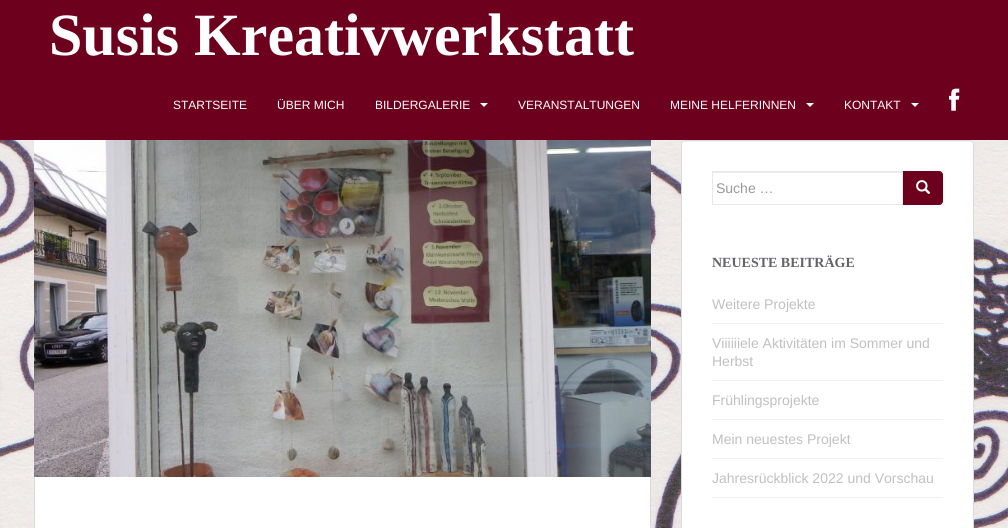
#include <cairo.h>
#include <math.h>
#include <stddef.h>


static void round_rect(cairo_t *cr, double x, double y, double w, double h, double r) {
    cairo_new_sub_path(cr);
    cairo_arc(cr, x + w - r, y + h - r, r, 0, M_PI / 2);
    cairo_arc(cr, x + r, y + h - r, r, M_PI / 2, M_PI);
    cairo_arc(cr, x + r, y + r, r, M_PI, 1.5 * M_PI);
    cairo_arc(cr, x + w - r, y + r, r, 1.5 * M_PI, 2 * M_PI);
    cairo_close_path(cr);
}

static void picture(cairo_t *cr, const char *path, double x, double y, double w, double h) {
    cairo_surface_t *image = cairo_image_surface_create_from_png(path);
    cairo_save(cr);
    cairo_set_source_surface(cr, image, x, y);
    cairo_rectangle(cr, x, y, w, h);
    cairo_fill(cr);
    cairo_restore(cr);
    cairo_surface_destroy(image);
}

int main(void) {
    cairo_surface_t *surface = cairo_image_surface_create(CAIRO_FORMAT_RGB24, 1008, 528);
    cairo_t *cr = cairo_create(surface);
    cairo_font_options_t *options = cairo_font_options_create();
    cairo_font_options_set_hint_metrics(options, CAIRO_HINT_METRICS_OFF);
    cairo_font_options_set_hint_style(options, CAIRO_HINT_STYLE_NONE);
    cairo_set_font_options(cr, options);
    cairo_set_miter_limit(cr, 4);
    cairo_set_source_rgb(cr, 1, 1, 1);
    cairo_paint(cr);
    picture(cr, "img1.png", 0, 140, 1008, 388);
    cairo_set_source_rgb(cr, 0.427, 0, 0.114);
    cairo_rectangle(cr, 0, 0, 1008, 140);
    cairo_fill(cr);
    cairo_select_font_face(cr, "Liberation Serif", CAIRO_FONT_SLANT_NORMAL, CAIRO_FONT_WEIGHT_BOLD);
    cairo_set_font_size(cr, 60);
    cairo_set_source_rgb(cr, 1, 1, 1);
    cairo_move_to(cr, 49, 55);
    cairo_show_text(cr, "Susis Kreativwerkstatt");
    cairo_select_font_face(cr, "Liberation Sans", CAIRO_FONT_SLANT_NORMAL, CAIRO_FONT_WEIGHT_NORMAL);
    cairo_set_font_size(cr, 12);
    cairo_move_to(cr, 173, 109);
    cairo_show_text(cr, "STARTSEITE");
    cairo_move_to(cr, 277, 109);
    cairo_show_text(cr, "ÜBER MICH");
    cairo_move_to(cr, 375, 109);
    cairo_show_text(cr, "BILDERGALERIE");
    cairo_new_path(cr);
    cairo_move_to(cr, 480, 103);
    cairo_line_to(cr, 488, 103);
    cairo_line_to(cr, 484, 107);
    cairo_close_path(cr);
    cairo_fill(cr);
    cairo_move_to(cr, 518, 109);
    cairo_show_text(cr, "VERANSTALTUNGEN");
    cairo_move_to(cr, 670, 109);
    cairo_show_text(cr, "MEINE HELFERINNEN");
    cairo_new_path(cr);
    cairo_move_to(cr, 806, 103);
    cairo_line_to(cr, 814, 103);
    cairo_line_to(cr, 810, 107);
    cairo_close_path(cr);
    cairo_fill(cr);
    cairo_move_to(cr, 844, 109);
    cairo_show_text(cr, "KONTAKT");
    cairo_new_path(cr);
    cairo_move_to(cr, 911, 103);
    cairo_line_to(cr, 919, 103);
    cairo_line_to(cr, 915, 107);
    cairo_close_path(cr);
    cairo_fill(cr);
    picture(cr, "img2.png", 949, 88, 11, 23);
    picture(cr, "img3.png", 34, 140, 617, 337);
    cairo_rectangle(cr, 35, 477, 615, 51);
    cairo_fill(cr);
    cairo_set_source_rgb(cr, 0.855, 0.855, 0.855);
    cairo_rectangle(cr, 650, 477, 1, 51);
    cairo_fill(cr);
    cairo_rectangle(cr, 34, 477, 1, 51);
    cairo_fill(cr);
    cairo_set_source_rgb(cr, 1, 1, 1);
    round_rect(cr, 681, 140, 293, 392, 4);
    cairo_fill(cr);
    cairo_set_source_rgb(cr, 0.949, 0.949, 0.949);
    cairo_new_path(cr);
    cairo_move_to(cr, 685, 142);
    cairo_line_to(cr, 970, 142);
    cairo_curve_to(cr, 972, 142, 973, 143, 973, 145);
    cairo_curve_to(cr, 973, 143, 972, 141, 970, 141);
    cairo_line_to(cr, 685, 141);
    cairo_curve_to(cr, 683, 141, 682, 143, 682, 145);
    cairo_curve_to(cr, 682, 143, 683, 142, 685, 142);
    cairo_close_path(cr);
    cairo_fill(cr);
    round_rect(cr, 681.5, 140.5, 292, 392, 3.5);
    cairo_set_source_rgb(cr, 0.855, 0.855, 0.855);
    cairo_set_line_width(cr, 1);
    cairo_stroke(cr);
    cairo_set_source_rgb(cr, 0.925, 0.925, 0.925);
    cairo_rectangle(cr, 713, 172, 189, 1);
    cairo_fill(cr);
    cairo_rectangle(cr, 712.5, 171.5, 190, 33);
    cairo_set_source_rgb(cr, 0.91, 0.91, 0.91);
    cairo_stroke(cr);
    cairo_set_font_size(cr, 14);
    cairo_set_source_rgb(cr, 0.6, 0.6, 0.6);
    cairo_move_to(cr, 716, 193);
    cairo_show_text(cr, "Suche …");
    cairo_set_source_rgb(cr, 0.427, 0, 0.114);
    cairo_new_path(cr);
    cairo_move_to(cr, 903.5, 171.5);
    cairo_line_to(cr, 939, 171.5);
    cairo_curve_to(cr, 941, 171.5, 942.5, 173, 942.5, 175);
    cairo_line_to(cr, 942.5, 201);
    cairo_curve_to(cr, 942.5, 203, 941, 204.5, 939, 204.5);
    cairo_line_to(cr, 903.5, 204.5);
    cairo_close_path(cr);
    cairo_fill_preserve(cr);
    cairo_stroke(cr);
    picture(cr, "img4.png", 916, 180, 15, 14);
    cairo_select_font_face(cr, "Liberation Serif", CAIRO_FONT_SLANT_NORMAL, CAIRO_FONT_WEIGHT_BOLD);
    cairo_set_source_rgb(cr, 0.388, 0.392, 0.404);
    cairo_move_to(cr, 712, 267);
    cairo_show_text(cr, "NEUESTE BEITRÄGE");
    cairo_set_source_rgb(cr, 0.949, 0.949, 0.949);
    cairo_rectangle(cr, 712, 323, 231, 1);
    cairo_fill(cr);
    cairo_select_font_face(cr, "Liberation Sans", CAIRO_FONT_SLANT_NORMAL, CAIRO_FONT_WEIGHT_NORMAL);
    cairo_set_source_rgb(cr, 0.757, 0.753, 0.753);
    cairo_move_to(cr, 712, 309);
    cairo_show_text(cr, "Weitere Projekte");
    cairo_set_source_rgb(cr, 0.949, 0.949, 0.949);
    cairo_rectangle(cr, 712, 380, 231, 1);
    cairo_fill(cr);
    cairo_set_source_rgb(cr, 0.757, 0.753, 0.753);
    cairo_move_to(cr, 712, 348);
    cairo_show_text(cr, "Viiiiiiele Aktivitäten im Sommer und");
    cairo_move_to(cr, 712, 366);
    cairo_show_text(cr, "Herbst");
    cairo_set_source_rgb(cr, 0.949, 0.949, 0.949);
    cairo_rectangle(cr, 712, 419, 231, 1);
    cairo_fill(cr);
    cairo_set_source_rgb(cr, 0.757, 0.753, 0.753);
    cairo_move_to(cr, 712, 405);
    cairo_show_text(cr, "Frühlingsprojekte");
    cairo_set_source_rgb(cr, 0.949, 0.949, 0.949);
    cairo_rectangle(cr, 712, 458, 231, 1);
    cairo_fill(cr);
    cairo_set_source_rgb(cr, 0.757, 0.753, 0.753);
    cairo_move_to(cr, 712, 444);
    cairo_show_text(cr, "Mein neuestes Projekt");
    cairo_set_source_rgb(cr, 0.949, 0.949, 0.949);
    cairo_rectangle(cr, 712, 497, 231, 1);
    cairo_fill(cr);
    cairo_set_source_rgb(cr, 0.757, 0.753, 0.753);
    cairo_move_to(cr, 712, 483);
    cairo_show_text(cr, "Jahresrückblick 2022 und Vorschau");
    cairo_surface_write_to_png(surface, "page.png");
    cairo_font_options_destroy(options);
    cairo_destroy(cr);
    cairo_surface_destroy(surface);
    return 0;
}
